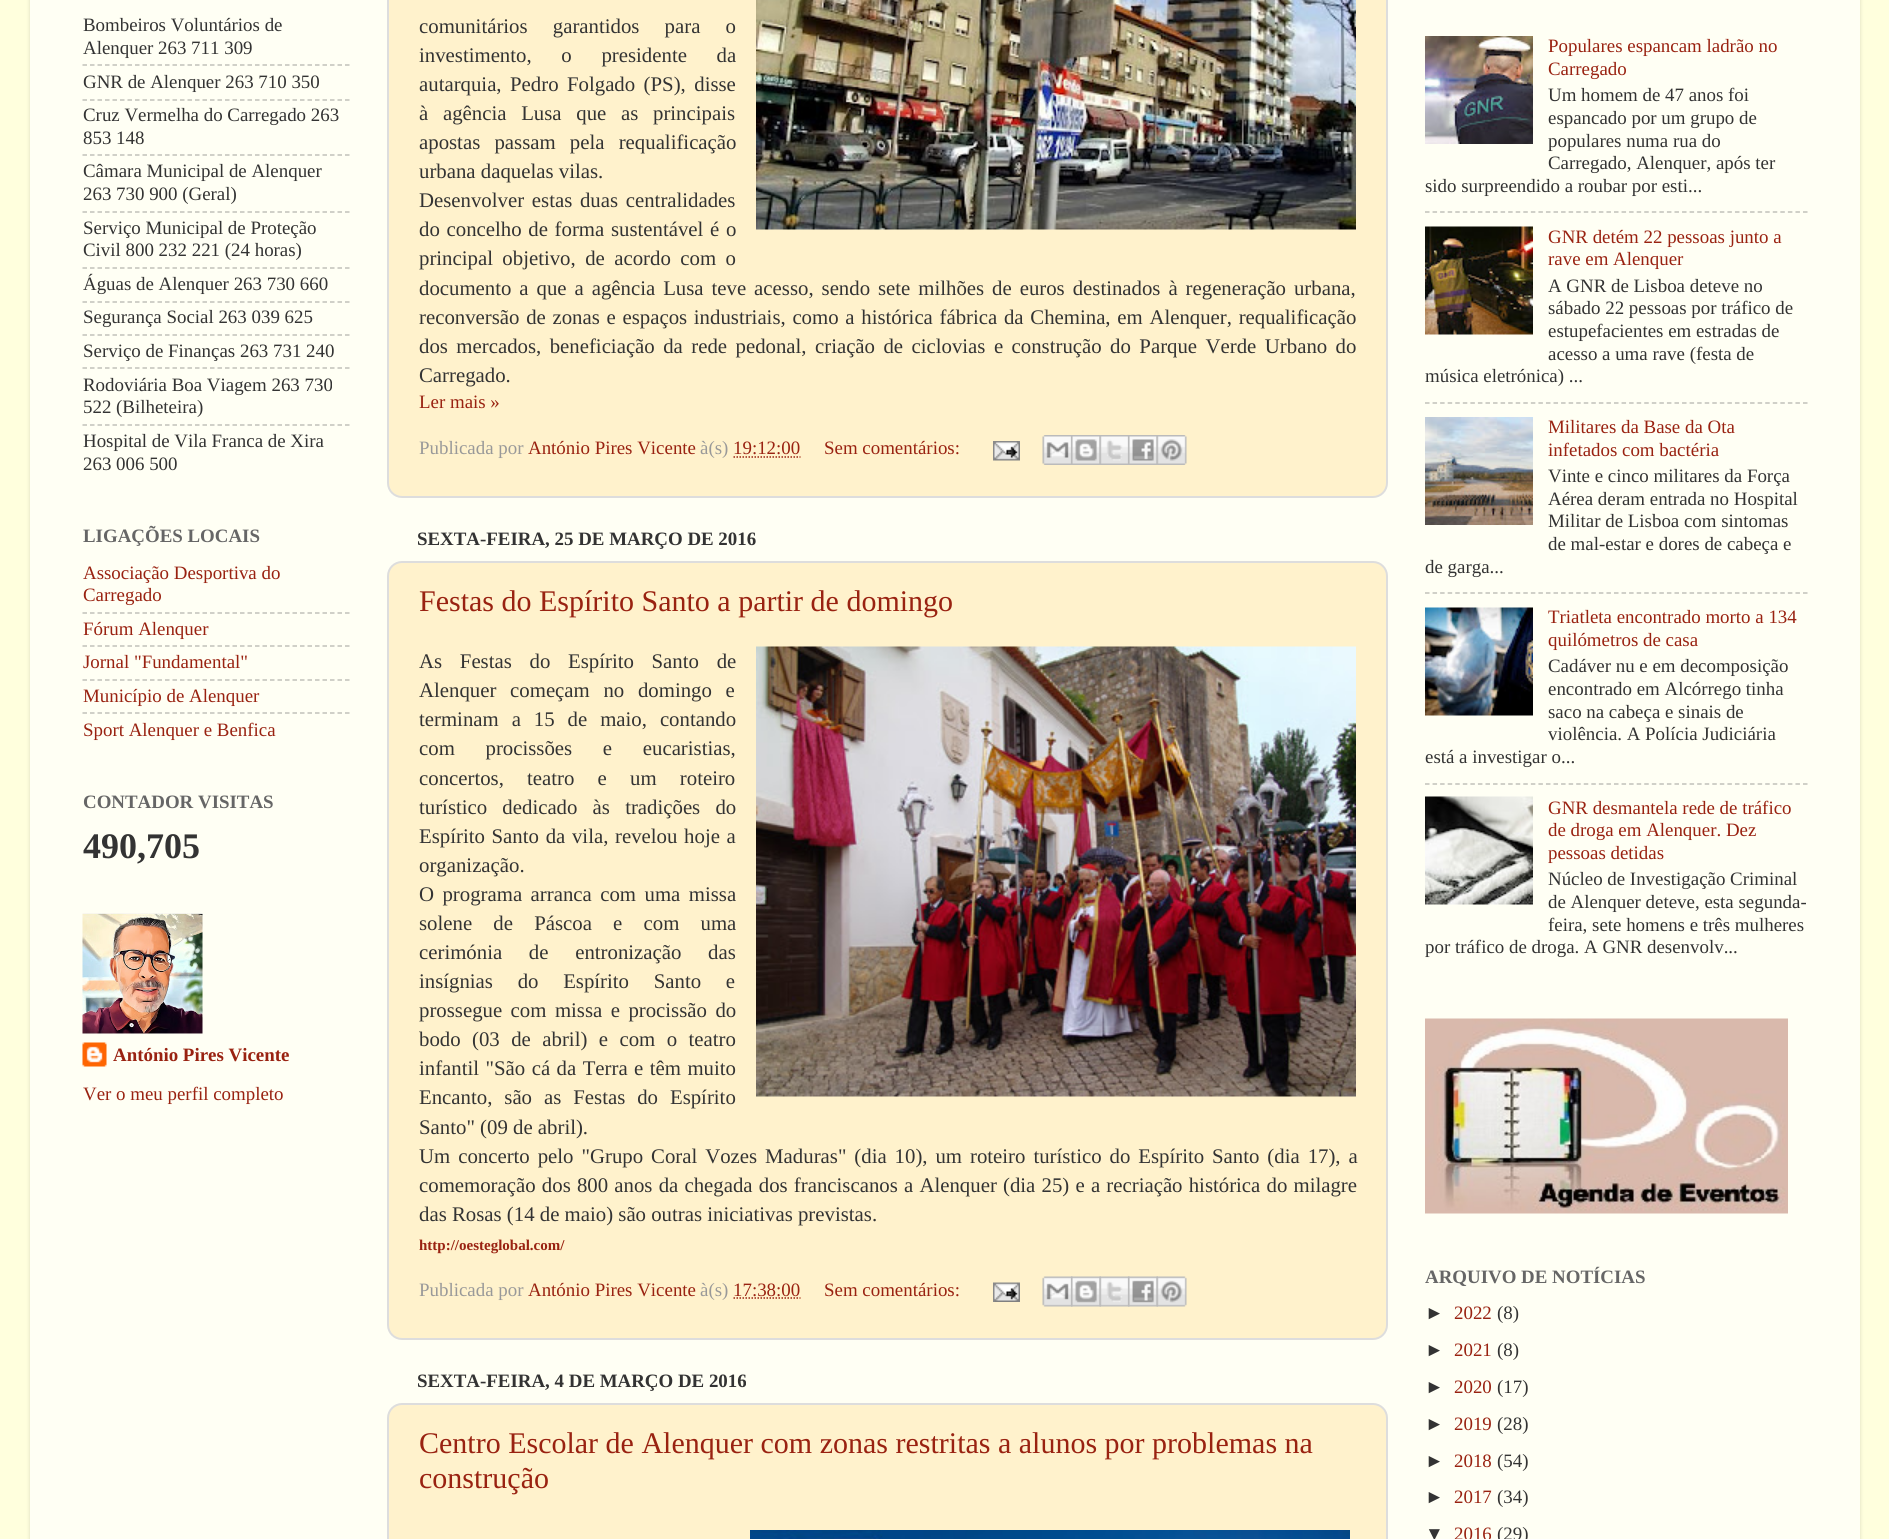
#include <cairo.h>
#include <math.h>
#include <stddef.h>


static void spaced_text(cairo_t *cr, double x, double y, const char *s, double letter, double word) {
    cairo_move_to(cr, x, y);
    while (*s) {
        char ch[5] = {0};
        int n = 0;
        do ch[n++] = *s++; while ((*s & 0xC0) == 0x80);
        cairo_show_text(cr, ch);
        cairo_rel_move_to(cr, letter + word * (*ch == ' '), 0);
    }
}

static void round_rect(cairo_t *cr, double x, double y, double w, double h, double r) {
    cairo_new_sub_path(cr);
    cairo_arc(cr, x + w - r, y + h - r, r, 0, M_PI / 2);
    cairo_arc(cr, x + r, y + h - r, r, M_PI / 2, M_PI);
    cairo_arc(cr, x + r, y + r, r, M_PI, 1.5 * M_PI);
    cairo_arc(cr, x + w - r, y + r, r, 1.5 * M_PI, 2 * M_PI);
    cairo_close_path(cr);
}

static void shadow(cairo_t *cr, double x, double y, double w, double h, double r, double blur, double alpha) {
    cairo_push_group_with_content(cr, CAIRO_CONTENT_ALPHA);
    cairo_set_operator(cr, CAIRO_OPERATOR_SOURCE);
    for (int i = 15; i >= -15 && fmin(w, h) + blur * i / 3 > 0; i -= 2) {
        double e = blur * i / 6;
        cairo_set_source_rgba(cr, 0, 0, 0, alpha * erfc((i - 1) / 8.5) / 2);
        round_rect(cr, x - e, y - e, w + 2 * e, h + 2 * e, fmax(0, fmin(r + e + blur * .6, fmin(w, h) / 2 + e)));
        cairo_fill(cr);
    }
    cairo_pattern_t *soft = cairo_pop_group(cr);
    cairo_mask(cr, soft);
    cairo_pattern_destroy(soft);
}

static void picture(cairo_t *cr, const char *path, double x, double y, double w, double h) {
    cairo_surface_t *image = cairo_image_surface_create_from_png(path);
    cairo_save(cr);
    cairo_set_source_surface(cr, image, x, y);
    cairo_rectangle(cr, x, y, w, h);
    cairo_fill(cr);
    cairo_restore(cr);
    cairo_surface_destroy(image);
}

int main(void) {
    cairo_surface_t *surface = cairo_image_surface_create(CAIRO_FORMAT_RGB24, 1889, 1539);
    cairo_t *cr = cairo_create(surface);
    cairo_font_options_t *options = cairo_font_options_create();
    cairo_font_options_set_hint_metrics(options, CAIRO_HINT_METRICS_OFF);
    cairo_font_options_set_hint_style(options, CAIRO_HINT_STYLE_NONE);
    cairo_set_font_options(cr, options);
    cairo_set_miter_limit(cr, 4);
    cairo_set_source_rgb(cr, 1, 1, 0.867);
    cairo_paint(cr);
    cairo_set_source_rgb(cr, 0, 0, 0);
    shadow(cr, 30, -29, 1830, 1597, 23, 2, 0.15);
    cairo_set_source_rgb(cr, 1, 1, 0.957);
    cairo_rectangle(cr, 30, 0, 1830, 1539);
    cairo_fill(cr);
    cairo_select_font_face(cr, "Liberation Serif", CAIRO_FONT_SLANT_NORMAL, CAIRO_FONT_WEIGHT_NORMAL);
    cairo_set_font_size(cr, 18.9);
    cairo_set_source_rgb(cr, 0.2, 0.2, 0.2);
    cairo_move_to(cr, 83, 31);
    cairo_show_text(cr, "Bombeiros Voluntários de");
    cairo_move_to(cr, 83, 54);
    cairo_show_text(cr, "Alenquer 263 711 309");
    cairo_new_path(cr);
    cairo_move_to(cr, 82.5, 65);
    cairo_line_to(cr, 349.5, 65);
    cairo_set_source_rgb(cr, 0.753, 0.753, 0.729);
    cairo_set_line_width(cr, 1.5);
    cairo_set_dash(cr, (double[]){4.5, 3}, 2, 0);
    cairo_stroke(cr);
    cairo_set_source_rgb(cr, 0.2, 0.2, 0.2);
    cairo_move_to(cr, 83, 88);
    cairo_show_text(cr, "GNR de Alenquer 263 710 350");
    cairo_new_path(cr);
    cairo_move_to(cr, 82.5, 100);
    cairo_line_to(cr, 349.5, 100);
    cairo_set_source_rgb(cr, 0.753, 0.753, 0.729);
    cairo_stroke(cr);
    cairo_set_source_rgb(cr, 0.2, 0.2, 0.2);
    cairo_move_to(cr, 83, 121);
    cairo_show_text(cr, "Cruz Vermelha do Carregado 263");
    cairo_move_to(cr, 83, 144);
    cairo_show_text(cr, "853 148");
    cairo_new_path(cr);
    cairo_move_to(cr, 82.5, 155);
    cairo_line_to(cr, 349.5, 155);
    cairo_set_source_rgb(cr, 0.753, 0.753, 0.729);
    cairo_stroke(cr);
    cairo_set_source_rgb(cr, 0.2, 0.2, 0.2);
    cairo_move_to(cr, 83, 177);
    cairo_show_text(cr, "Câmara Municipal de Alenquer");
    cairo_move_to(cr, 83, 200);
    cairo_show_text(cr, "263 730 900 (Geral)");
    cairo_new_path(cr);
    cairo_move_to(cr, 82.5, 212);
    cairo_line_to(cr, 349.5, 212);
    cairo_set_source_rgb(cr, 0.753, 0.753, 0.729);
    cairo_stroke(cr);
    cairo_set_source_rgb(cr, 0.2, 0.2, 0.2);
    cairo_move_to(cr, 83, 234);
    cairo_show_text(cr, "Serviço Municipal de Proteção");
    cairo_move_to(cr, 83, 256);
    cairo_show_text(cr, "Civil 800 232 221 (24 horas)");
    cairo_new_path(cr);
    cairo_move_to(cr, 82.5, 268);
    cairo_line_to(cr, 349.5, 268);
    cairo_set_source_rgb(cr, 0.753, 0.753, 0.729);
    cairo_stroke(cr);
    cairo_set_source_rgb(cr, 0.2, 0.2, 0.2);
    cairo_move_to(cr, 83, 290);
    cairo_show_text(cr, "Águas de Alenquer 263 730 660");
    cairo_new_path(cr);
    cairo_move_to(cr, 82.5, 302);
    cairo_line_to(cr, 349.5, 302);
    cairo_set_source_rgb(cr, 0.753, 0.753, 0.729);
    cairo_stroke(cr);
    cairo_set_source_rgb(cr, 0.2, 0.2, 0.2);
    cairo_move_to(cr, 83, 323);
    cairo_show_text(cr, "Segurança Social 263 039 625");
    cairo_new_path(cr);
    cairo_move_to(cr, 82.5, 335);
    cairo_line_to(cr, 349.5, 335);
    cairo_set_source_rgb(cr, 0.753, 0.753, 0.729);
    cairo_stroke(cr);
    cairo_set_source_rgb(cr, 0.2, 0.2, 0.2);
    cairo_move_to(cr, 83, 357);
    cairo_show_text(cr, "Serviço de Finanças 263 731 240");
    cairo_new_path(cr);
    cairo_move_to(cr, 82.5, 368);
    cairo_line_to(cr, 349.5, 368);
    cairo_set_source_rgb(cr, 0.753, 0.753, 0.729);
    cairo_stroke(cr);
    cairo_set_source_rgb(cr, 0.2, 0.2, 0.2);
    cairo_move_to(cr, 83, 391);
    cairo_show_text(cr, "Rodoviária Boa Viagem 263 730");
    cairo_move_to(cr, 83, 413);
    cairo_show_text(cr, "522 (Bilheteira)");
    cairo_new_path(cr);
    cairo_move_to(cr, 82.5, 425);
    cairo_line_to(cr, 349.5, 425);
    cairo_set_source_rgb(cr, 0.753, 0.753, 0.729);
    cairo_stroke(cr);
    cairo_set_source_rgb(cr, 0.2, 0.2, 0.2);
    cairo_move_to(cr, 83, 447);
    cairo_show_text(cr, "Hospital de Vila Franca de Xira");
    cairo_move_to(cr, 83, 470);
    cairo_show_text(cr, "263 006 500");
    cairo_select_font_face(cr, "Liberation Serif", CAIRO_FONT_SLANT_NORMAL, CAIRO_FONT_WEIGHT_BOLD);
    cairo_set_source_rgb(cr, 0.4, 0.4, 0.4);
    cairo_move_to(cr, 83, 542);
    cairo_show_text(cr, "LIGAÇÕES LOCAIS");
    cairo_select_font_face(cr, "Liberation Serif", CAIRO_FONT_SLANT_NORMAL, CAIRO_FONT_WEIGHT_NORMAL);
    cairo_set_source_rgb(cr, 0.6, 0.133, 0.067);
    cairo_move_to(cr, 83, 579);
    cairo_show_text(cr, "Associação Desportiva do");
    cairo_move_to(cr, 83, 601);
    cairo_show_text(cr, "Carregado");
    cairo_new_path(cr);
    cairo_move_to(cr, 82.5, 613);
    cairo_line_to(cr, 349.5, 613);
    cairo_set_source_rgb(cr, 0.753, 0.753, 0.729);
    cairo_stroke(cr);
    cairo_set_source_rgb(cr, 0.6, 0.133, 0.067);
    cairo_move_to(cr, 83, 635);
    cairo_show_text(cr, "Fórum Alenquer");
    cairo_new_path(cr);
    cairo_move_to(cr, 82.5, 646);
    cairo_line_to(cr, 349.5, 646);
    cairo_set_source_rgb(cr, 0.753, 0.753, 0.729);
    cairo_stroke(cr);
    cairo_set_source_rgb(cr, 0.6, 0.133, 0.067);
    cairo_move_to(cr, 83, 668);
    cairo_show_text(cr, "Jornal \"Fundamental\"");
    cairo_new_path(cr);
    cairo_move_to(cr, 82.5, 680);
    cairo_line_to(cr, 349.5, 680);
    cairo_set_source_rgb(cr, 0.753, 0.753, 0.729);
    cairo_stroke(cr);
    cairo_set_source_rgb(cr, 0.6, 0.133, 0.067);
    cairo_move_to(cr, 83, 702);
    cairo_show_text(cr, "Município de Alenquer");
    cairo_new_path(cr);
    cairo_move_to(cr, 82.5, 713);
    cairo_line_to(cr, 349.5, 713);
    cairo_set_source_rgb(cr, 0.753, 0.753, 0.729);
    cairo_stroke(cr);
    cairo_set_source_rgb(cr, 0.6, 0.133, 0.067);
    cairo_move_to(cr, 83, 736);
    cairo_show_text(cr, "Sport Alenquer e Benfica");
    cairo_select_font_face(cr, "Liberation Serif", CAIRO_FONT_SLANT_NORMAL, CAIRO_FONT_WEIGHT_BOLD);
    cairo_set_source_rgb(cr, 0.4, 0.4, 0.4);
    cairo_move_to(cr, 83, 808);
    cairo_show_text(cr, "CONTADOR VISITAS");
    cairo_set_font_size(cr, 36);
    cairo_set_source_rgb(cr, 0.2, 0.2, 0.2);
    cairo_move_to(cr, 83, 858);
    cairo_show_text(cr, "490,705");
    picture(cr, "img1.png", 82, 913, 121, 121);
    picture(cr, "img2.png", 82, 1042, 25, 25);
    cairo_set_font_size(cr, 18.9);
    cairo_set_source_rgb(cr, 0.6, 0.133, 0.067);
    cairo_move_to(cr, 113, 1061);
    cairo_show_text(cr, "António Pires Vicente");
    cairo_select_font_face(cr, "Liberation Serif", CAIRO_FONT_SLANT_NORMAL, CAIRO_FONT_WEIGHT_NORMAL);
    cairo_move_to(cr, 83, 1100);
    cairo_show_text(cr, "Ver o meu perfil completo");
    cairo_set_source_rgb(cr, 1, 0.949, 0.8);
    round_rect(cr, 388, -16, 999, 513, 14);
    cairo_fill_preserve(cr);
    cairo_set_source_rgb(cr, 0.867, 0.867, 0.867);
    cairo_set_line_width(cr, 2);
    cairo_set_dash(cr, NULL, 0, 0);
    cairo_stroke(cr);
    cairo_set_font_size(cr, 20.8);
    cairo_set_source_rgb(cr, 0.2, 0.2, 0.2);
    spaced_text(cr, 419, 33, "comunitários garantidos para o", 0, 20);
    spaced_text(cr, 419, 62, "investimento, o presidente da", 0, 24.5);
    spaced_text(cr, 419, 91, "autarquia, Pedro Folgado (PS), disse", 0, 3.25);
    spaced_text(cr, 419, 120, "à agência Lusa que as principais", 0, 9.5);
    spaced_text(cr, 419, 149, "apostas passam pela requalificação", 0, 9);
    cairo_move_to(cr, 419, 178);
    cairo_show_text(cr, "urbana daquelas vilas.");
    picture(cr, "img3.png", 756, 0, 600, 230);
    spaced_text(cr, 419, 207, "Desenvolver estas duas centralidades", 0, 2.5);
    spaced_text(cr, 419, 236, "do concelho de forma sustentável é o", 0, 1.5);
    spaced_text(cr, 419, 265, "principal objetivo, de acordo com o", 0, 4.25);
    spaced_text(cr, 419, 295, "documento a que a agência Lusa teve acesso, sendo sete milhões de euros destinados à regeneração urbana,", 0, 2.75);
    spaced_text(cr, 419, 324, "reconversão de zonas e espaços industriais, como a histórica fábrica da Chemina, em Alenquer, requalificação", 0, 1.5);
    spaced_text(cr, 419, 353, "dos mercados, beneficiação da rede pedonal, criação de ciclovias e construção do Parque Verde Urbano do", 0, 3.25);
    cairo_move_to(cr, 419, 382);
    cairo_show_text(cr, "Carregado.");
    cairo_set_font_size(cr, 18.9);
    cairo_set_source_rgb(cr, 0.6, 0.133, 0.067);
    cairo_move_to(cr, 419, 408);
    cairo_show_text(cr, "Ler mais »");
    cairo_set_source_rgb(cr, 0.6, 0.6, 0.6);
    cairo_move_to(cr, 419, 454);
    cairo_show_text(cr, "Publicada por");
    cairo_set_source_rgb(cr, 0.6, 0.133, 0.067);
    cairo_move_to(cr, 528, 454);
    cairo_show_text(cr, "António Pires Vicente");
    cairo_set_source_rgb(cr, 0.6, 0.6, 0.6);
    cairo_move_to(cr, 700, 454);
    cairo_show_text(cr, "à(s)");
    cairo_set_source_rgb(cr, 0.6, 0.133, 0.067);
    cairo_move_to(cr, 733, 454);
    cairo_show_text(cr, "19:12:00");
    cairo_new_path(cr);
    cairo_move_to(cr, 733.5, 457);
    cairo_line_to(cr, 800.5, 457);
    cairo_set_line_width(cr, 1.5);
    cairo_set_dash(cr, (double[]){1.5, 1.5}, 2, 0);
    cairo_stroke(cr);
    cairo_move_to(cr, 824, 454);
    cairo_show_text(cr, "Sem comentários:");
    picture(cr, "img4.png", 993, 441, 27, 20);
    picture(cr, "img5.png", 1042, 435, 29, 30);
    picture(cr, "img6.png", 1071, 435, 29, 30);
    picture(cr, "img7.png", 1099, 435, 29, 30);
    picture(cr, "img8.png", 1128, 435, 29, 30);
    picture(cr, "img9.png", 1156, 435, 31, 30);
    cairo_select_font_face(cr, "Liberation Serif", CAIRO_FONT_SLANT_NORMAL, CAIRO_FONT_WEIGHT_BOLD);
    cairo_set_source_rgb(cr, 0.2, 0.2, 0.2);
    cairo_move_to(cr, 417, 545);
    cairo_show_text(cr, "SEXTA-FEIRA, 25 DE MARÇO DE 2016");
    cairo_set_source_rgb(cr, 1, 0.949, 0.8);
    round_rect(cr, 388, 562, 999, 777, 14);
    cairo_fill_preserve(cr);
    cairo_set_source_rgb(cr, 0.867, 0.867, 0.867);
    cairo_set_line_width(cr, 2);
    cairo_set_dash(cr, NULL, 0, 0);
    cairo_stroke(cr);
    cairo_select_font_face(cr, "Liberation Serif", CAIRO_FONT_SLANT_NORMAL, CAIRO_FONT_WEIGHT_NORMAL);
    cairo_set_font_size(cr, 30);
    cairo_set_source_rgb(cr, 0.6, 0.133, 0.067);
    cairo_move_to(cr, 419, 611);
    cairo_show_text(cr, "Festas do Espírito Santo a partir de domingo");
    cairo_set_font_size(cr, 20.8);
    cairo_set_source_rgb(cr, 0.2, 0.2, 0.2);
    spaced_text(cr, 419, 668, "As Festas do Espírito Santo de", 0, 12.5);
    spaced_text(cr, 419, 697, "Alenquer começam no domingo e", 0, 8.5);
    spaced_text(cr, 419, 726, "terminam a 15 de maio, contando", 0, 7.75);
    spaced_text(cr, 419, 755, "com procissões e eucaristias,", 0, 25.5);
    spaced_text(cr, 419, 785, "concertos, teatro e um roteiro", 0, 18);
    spaced_text(cr, 419, 814, "turístico dedicado às tradições do", 0, 10);
    spaced_text(cr, 419, 843, "Espírito Santo da vila, revelou hoje a", 0, 1.5);
    cairo_move_to(cr, 419, 872);
    cairo_show_text(cr, "organização.");
    picture(cr, "img10.png", 756, 646, 600, 451);
    spaced_text(cr, 419, 901, "O programa arranca com uma missa", 0, 3.25);
    spaced_text(cr, 419, 930, "solene de Páscoa e com uma", 0, 16);
    spaced_text(cr, 419, 959, "cerimónia de entronização das", 0, 21.5);
    spaced_text(cr, 419, 988, "insígnias do Espírito Santo e", 0, 19.5);
    spaced_text(cr, 419, 1017, "prossegue com missa e procissão do", 0, 3.25);
    spaced_text(cr, 419, 1046, "bodo (03 de abril) e com o teatro", 0, 6.25);
    spaced_text(cr, 419, 1075, "infantil \"São cá da Terra e têm muito", 0, 1.25);
    spaced_text(cr, 419, 1104, "Encanto, são as Festas do Espírito", 0, 6.75);
    cairo_move_to(cr, 419, 1134);
    cairo_show_text(cr, "Santo\" (09 de abril).");
    spaced_text(cr, 419, 1163, "Um concerto pelo \"Grupo Coral Vozes Maduras\" (dia 10), um roteiro turístico do Espírito Santo (dia 17), a", 0, 2.75);
    spaced_text(cr, 419, 1192, "comemoração dos 800 anos da chegada dos franciscanos a Alenquer (dia 25) e a recriação histórica do milagre", 0, 1);
    cairo_move_to(cr, 419, 1221);
    cairo_show_text(cr, "das Rosas (14 de maio) são outras iniciativas previstas.");
    cairo_select_font_face(cr, "Liberation Serif", CAIRO_FONT_SLANT_NORMAL, CAIRO_FONT_WEIGHT_BOLD);
    cairo_set_font_size(cr, 15);
    cairo_set_source_rgb(cr, 0.6, 0.133, 0.067);
    cairo_move_to(cr, 419, 1250);
    cairo_show_text(cr, "http://oesteglobal.com/");
    cairo_select_font_face(cr, "Liberation Serif", CAIRO_FONT_SLANT_NORMAL, CAIRO_FONT_WEIGHT_NORMAL);
    cairo_set_font_size(cr, 18.9);
    cairo_set_source_rgb(cr, 0.6, 0.6, 0.6);
    cairo_move_to(cr, 419, 1296);
    cairo_show_text(cr, "Publicada por");
    cairo_set_source_rgb(cr, 0.6, 0.133, 0.067);
    cairo_move_to(cr, 528, 1296);
    cairo_show_text(cr, "António Pires Vicente");
    cairo_set_source_rgb(cr, 0.6, 0.6, 0.6);
    cairo_move_to(cr, 700, 1296);
    cairo_show_text(cr, "à(s)");
    cairo_set_source_rgb(cr, 0.6, 0.133, 0.067);
    cairo_move_to(cr, 733, 1296);
    cairo_show_text(cr, "17:38:00");
    cairo_new_path(cr);
    cairo_move_to(cr, 733.5, 1298);
    cairo_line_to(cr, 800.5, 1298);
    cairo_set_line_width(cr, 1.5);
    cairo_set_dash(cr, (double[]){1.5, 1.5}, 2, 0);
    cairo_stroke(cr);
    cairo_move_to(cr, 824, 1296);
    cairo_show_text(cr, "Sem comentários:");
    picture(cr, "img11.png", 993, 1282, 27, 20);
    picture(cr, "img12.png", 1042, 1276, 31, 31);
    picture(cr, "img13.png", 1071, 1276, 30, 31);
    picture(cr, "img14.png", 1099, 1276, 31, 31);
    picture(cr, "img15.png", 1128, 1276, 30, 31);
    picture(cr, "img16.png", 1156, 1276, 31, 31);
    cairo_select_font_face(cr, "Liberation Serif", CAIRO_FONT_SLANT_NORMAL, CAIRO_FONT_WEIGHT_BOLD);
    cairo_set_source_rgb(cr, 0.2, 0.2, 0.2);
    cairo_move_to(cr, 417, 1387);
    cairo_show_text(cr, "SEXTA-FEIRA, 4 DE MARÇO DE 2016");
    cairo_set_source_rgb(cr, 1, 0.949, 0.8);
    round_rect(cr, 388, 1404, 999, 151, 14);
    cairo_fill_preserve(cr);
    cairo_set_source_rgb(cr, 0.867, 0.867, 0.867);
    cairo_set_line_width(cr, 2);
    cairo_set_dash(cr, NULL, 0, 0);
    cairo_stroke(cr);
    cairo_select_font_face(cr, "Liberation Serif", CAIRO_FONT_SLANT_NORMAL, CAIRO_FONT_WEIGHT_NORMAL);
    cairo_set_font_size(cr, 30);
    cairo_set_source_rgb(cr, 0.6, 0.133, 0.067);
    cairo_move_to(cr, 419, 1453);
    cairo_show_text(cr, "Centro Escolar de Alenquer com zonas restritas a alunos por problemas na");
    cairo_move_to(cr, 419, 1488);
    cairo_show_text(cr, "construção");
    picture(cr, "img17.png", 750, 1530, 600, 9);
    picture(cr, "img18.png", 1425, 36, 108, 108);
    cairo_set_font_size(cr, 18.9);
    cairo_move_to(cr, 1548, 52);
    cairo_show_text(cr, "Populares espancam ladrão no");
    cairo_move_to(cr, 1548, 75);
    cairo_show_text(cr, "Carregado");
    cairo_set_source_rgb(cr, 0.2, 0.2, 0.2);
    cairo_move_to(cr, 1548, 101);
    cairo_show_text(cr, "Um homem de 47 anos foi");
    cairo_move_to(cr, 1548, 124);
    cairo_show_text(cr, "espancado por um grupo de");
    cairo_move_to(cr, 1548, 147);
    cairo_show_text(cr, "populares numa rua do");
    cairo_move_to(cr, 1548, 169);
    cairo_show_text(cr, "Carregado, Alenquer, após ter");
    cairo_move_to(cr, 1425, 192);
    cairo_show_text(cr, "sido surpreendido a roubar por esti...");
    cairo_new_path(cr);
    cairo_move_to(cr, 1425, 212);
    cairo_line_to(cr, 1807.5, 212);
    cairo_set_source_rgb(cr, 0.753, 0.753, 0.729);
    cairo_set_line_width(cr, 1.5);
    cairo_set_dash(cr, (double[]){4.5, 3.06}, 2, 0);
    cairo_stroke(cr);
    picture(cr, "img19.png", 1425, 226, 108, 109);
    cairo_set_source_rgb(cr, 0.6, 0.133, 0.067);
    cairo_move_to(cr, 1548, 243);
    cairo_show_text(cr, "GNR detém 22 pessoas junto a");
    cairo_move_to(cr, 1548, 265);
    cairo_show_text(cr, "rave em Alenquer");
    cairo_set_source_rgb(cr, 0.2, 0.2, 0.2);
    cairo_move_to(cr, 1548, 292);
    cairo_show_text(cr, "A GNR de Lisboa deteve no");
    cairo_move_to(cr, 1548, 314);
    cairo_show_text(cr, "sábado 22 pessoas por tráfico de");
    cairo_move_to(cr, 1548, 337);
    cairo_show_text(cr, "estupefacientes em estradas de");
    cairo_move_to(cr, 1548, 360);
    cairo_show_text(cr, "acesso a uma rave (festa de");
    cairo_move_to(cr, 1425, 382);
    cairo_show_text(cr, "música eletrónica) ...");
    cairo_new_path(cr);
    cairo_move_to(cr, 1425, 403);
    cairo_line_to(cr, 1807.5, 403);
    cairo_set_source_rgb(cr, 0.753, 0.753, 0.729);
    cairo_stroke(cr);
    picture(cr, "img20.png", 1425, 417, 108, 108);
    cairo_set_source_rgb(cr, 0.6, 0.133, 0.067);
    cairo_move_to(cr, 1548, 433);
    cairo_show_text(cr, "Militares da Base da Ota");
    cairo_move_to(cr, 1548, 456);
    cairo_show_text(cr, "infetados com bactéria");
    cairo_set_source_rgb(cr, 0.2, 0.2, 0.2);
    cairo_move_to(cr, 1548, 482);
    cairo_show_text(cr, "Vinte e cinco militares da Força");
    cairo_move_to(cr, 1548, 505);
    cairo_show_text(cr, "Aérea deram entrada no Hospital");
    cairo_move_to(cr, 1548, 527);
    cairo_show_text(cr, "Militar de Lisboa com sintomas");
    cairo_move_to(cr, 1548, 550);
    cairo_show_text(cr, "de mal-estar e dores de cabeça e");
    cairo_move_to(cr, 1425, 573);
    cairo_show_text(cr, "de garga...");
    cairo_new_path(cr);
    cairo_move_to(cr, 1425, 593);
    cairo_line_to(cr, 1807.5, 593);
    cairo_set_source_rgb(cr, 0.753, 0.753, 0.729);
    cairo_stroke(cr);
    picture(cr, "img21.png", 1425, 607, 108, 109);
    cairo_set_source_rgb(cr, 0.6, 0.133, 0.067);
    cairo_move_to(cr, 1548, 623);
    cairo_show_text(cr, "Triatleta encontrado morto a 134");
    cairo_move_to(cr, 1548, 646);
    cairo_show_text(cr, "quilómetros de casa");
    cairo_set_source_rgb(cr, 0.2, 0.2, 0.2);
    cairo_move_to(cr, 1548, 672);
    cairo_show_text(cr, "Cadáver nu e em decomposição");
    cairo_move_to(cr, 1548, 695);
    cairo_show_text(cr, "encontrado em Alcórrego tinha");
    cairo_move_to(cr, 1548, 718);
    cairo_show_text(cr, "saco na cabeça e sinais de");
    cairo_move_to(cr, 1548, 740);
    cairo_show_text(cr, "violência. A Polícia Judiciária");
    cairo_move_to(cr, 1425, 763);
    cairo_show_text(cr, "está a investigar o...");
    cairo_new_path(cr);
    cairo_move_to(cr, 1425, 784);
    cairo_line_to(cr, 1807.5, 784);
    cairo_set_source_rgb(cr, 0.753, 0.753, 0.729);
    cairo_stroke(cr);
    picture(cr, "img22.png", 1425, 796, 108, 109);
    cairo_set_source_rgb(cr, 0.6, 0.133, 0.067);
    cairo_move_to(cr, 1548, 814);
    cairo_show_text(cr, "GNR desmantela rede de tráfico");
    cairo_move_to(cr, 1548, 836);
    cairo_show_text(cr, "de droga em Alenquer. Dez");
    cairo_move_to(cr, 1548, 859);
    cairo_show_text(cr, "pessoas detidas");
    cairo_set_source_rgb(cr, 0.2, 0.2, 0.2);
    cairo_move_to(cr, 1548, 885);
    cairo_show_text(cr, "Núcleo de Investigação Criminal");
    cairo_move_to(cr, 1548, 908);
    cairo_show_text(cr, "de Alenquer deteve, esta segunda-");
    cairo_move_to(cr, 1548, 931);
    cairo_show_text(cr, "feira, sete homens e três mulheres");
    cairo_move_to(cr, 1425, 953);
    cairo_show_text(cr, "por tráfico de droga. A GNR desenvolv...");
    picture(cr, "img23.png", 1425, 1018, 363, 196);
    cairo_select_font_face(cr, "Liberation Serif", CAIRO_FONT_SLANT_NORMAL, CAIRO_FONT_WEIGHT_BOLD);
    cairo_set_source_rgb(cr, 0.4, 0.4, 0.4);
    cairo_move_to(cr, 1425, 1283);
    cairo_show_text(cr, "ARQUIVO DE NOTÍCIAS");
    cairo_select_font_face(cr, "Liberation Sans", CAIRO_FONT_SLANT_NORMAL, CAIRO_FONT_WEIGHT_NORMAL);
    cairo_set_source_rgb(cr, 0.2, 0.2, 0.2);
    cairo_move_to(cr, 1425, 1319);
    cairo_show_text(cr, "►");
    cairo_select_font_face(cr, "Liberation Serif", CAIRO_FONT_SLANT_NORMAL, CAIRO_FONT_WEIGHT_NORMAL);
    cairo_set_source_rgb(cr, 0.6, 0.133, 0.067);
    cairo_move_to(cr, 1454, 1319);
    cairo_show_text(cr, "2022");
    cairo_set_source_rgb(cr, 0.2, 0.2, 0.2);
    cairo_move_to(cr, 1497, 1319);
    cairo_show_text(cr, "(8)");
    cairo_select_font_face(cr, "Liberation Sans", CAIRO_FONT_SLANT_NORMAL, CAIRO_FONT_WEIGHT_NORMAL);
    cairo_move_to(cr, 1425, 1356);
    cairo_show_text(cr, "►");
    cairo_select_font_face(cr, "Liberation Serif", CAIRO_FONT_SLANT_NORMAL, CAIRO_FONT_WEIGHT_NORMAL);
    cairo_set_source_rgb(cr, 0.6, 0.133, 0.067);
    cairo_move_to(cr, 1454, 1356);
    cairo_show_text(cr, "2021");
    cairo_set_source_rgb(cr, 0.2, 0.2, 0.2);
    cairo_move_to(cr, 1497, 1356);
    cairo_show_text(cr, "(8)");
    cairo_select_font_face(cr, "Liberation Sans", CAIRO_FONT_SLANT_NORMAL, CAIRO_FONT_WEIGHT_NORMAL);
    cairo_move_to(cr, 1425, 1393);
    cairo_show_text(cr, "►");
    cairo_select_font_face(cr, "Liberation Serif", CAIRO_FONT_SLANT_NORMAL, CAIRO_FONT_WEIGHT_NORMAL);
    cairo_set_source_rgb(cr, 0.6, 0.133, 0.067);
    cairo_move_to(cr, 1454, 1393);
    cairo_show_text(cr, "2020");
    cairo_set_source_rgb(cr, 0.2, 0.2, 0.2);
    cairo_move_to(cr, 1497, 1393);
    cairo_show_text(cr, "(17)");
    cairo_select_font_face(cr, "Liberation Sans", CAIRO_FONT_SLANT_NORMAL, CAIRO_FONT_WEIGHT_NORMAL);
    cairo_move_to(cr, 1425, 1430);
    cairo_show_text(cr, "►");
    cairo_select_font_face(cr, "Liberation Serif", CAIRO_FONT_SLANT_NORMAL, CAIRO_FONT_WEIGHT_NORMAL);
    cairo_set_source_rgb(cr, 0.6, 0.133, 0.067);
    cairo_move_to(cr, 1454, 1430);
    cairo_show_text(cr, "2019");
    cairo_set_source_rgb(cr, 0.2, 0.2, 0.2);
    cairo_move_to(cr, 1497, 1430);
    cairo_show_text(cr, "(28)");
    cairo_select_font_face(cr, "Liberation Sans", CAIRO_FONT_SLANT_NORMAL, CAIRO_FONT_WEIGHT_NORMAL);
    cairo_move_to(cr, 1425, 1467);
    cairo_show_text(cr, "►");
    cairo_select_font_face(cr, "Liberation Serif", CAIRO_FONT_SLANT_NORMAL, CAIRO_FONT_WEIGHT_NORMAL);
    cairo_set_source_rgb(cr, 0.6, 0.133, 0.067);
    cairo_move_to(cr, 1454, 1467);
    cairo_show_text(cr, "2018");
    cairo_set_source_rgb(cr, 0.2, 0.2, 0.2);
    cairo_move_to(cr, 1497, 1467);
    cairo_show_text(cr, "(54)");
    cairo_select_font_face(cr, "Liberation Sans", CAIRO_FONT_SLANT_NORMAL, CAIRO_FONT_WEIGHT_NORMAL);
    cairo_move_to(cr, 1425, 1503);
    cairo_show_text(cr, "►");
    cairo_select_font_face(cr, "Liberation Serif", CAIRO_FONT_SLANT_NORMAL, CAIRO_FONT_WEIGHT_NORMAL);
    cairo_set_source_rgb(cr, 0.6, 0.133, 0.067);
    cairo_move_to(cr, 1454, 1503);
    cairo_show_text(cr, "2017");
    cairo_set_source_rgb(cr, 0.2, 0.2, 0.2);
    cairo_move_to(cr, 1497, 1503);
    cairo_show_text(cr, "(34)");
    cairo_select_font_face(cr, "Liberation Sans", CAIRO_FONT_SLANT_NORMAL, CAIRO_FONT_WEIGHT_NORMAL);
    cairo_move_to(cr, 1425, 1540);
    cairo_show_text(cr, "▼");
    cairo_select_font_face(cr, "Liberation Serif", CAIRO_FONT_SLANT_NORMAL, CAIRO_FONT_WEIGHT_NORMAL);
    cairo_set_source_rgb(cr, 0.6, 0.133, 0.067);
    cairo_move_to(cr, 1454, 1540);
    cairo_show_text(cr, "2016");
    cairo_set_source_rgb(cr, 0.2, 0.2, 0.2);
    cairo_move_to(cr, 1497, 1540);
    cairo_show_text(cr, "(29)");
    cairo_surface_write_to_png(surface, "page.png");
    cairo_font_options_destroy(options);
    cairo_destroy(cr);
    cairo_surface_destroy(surface);
    return 0;
}
